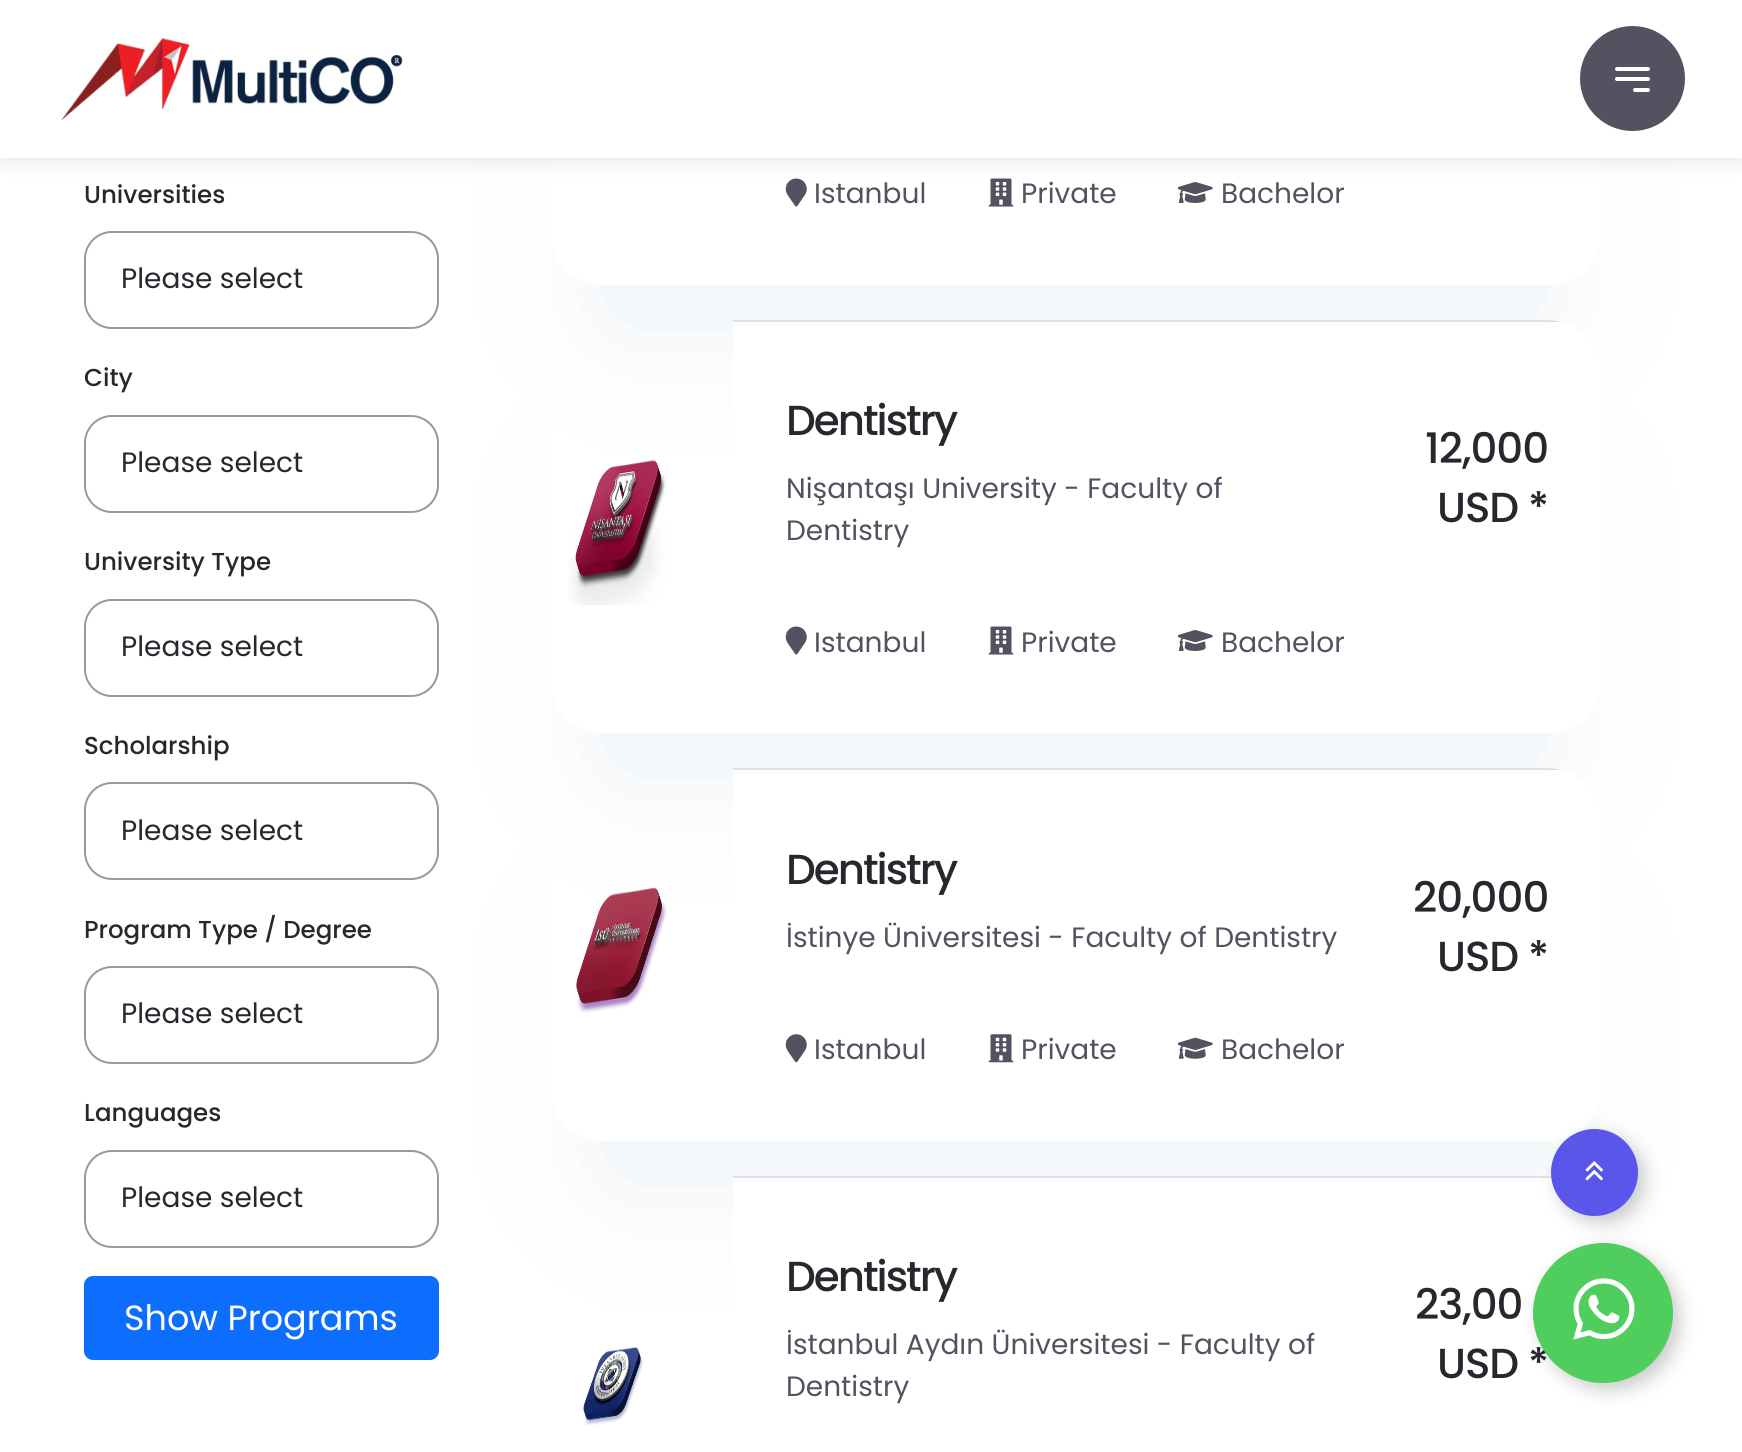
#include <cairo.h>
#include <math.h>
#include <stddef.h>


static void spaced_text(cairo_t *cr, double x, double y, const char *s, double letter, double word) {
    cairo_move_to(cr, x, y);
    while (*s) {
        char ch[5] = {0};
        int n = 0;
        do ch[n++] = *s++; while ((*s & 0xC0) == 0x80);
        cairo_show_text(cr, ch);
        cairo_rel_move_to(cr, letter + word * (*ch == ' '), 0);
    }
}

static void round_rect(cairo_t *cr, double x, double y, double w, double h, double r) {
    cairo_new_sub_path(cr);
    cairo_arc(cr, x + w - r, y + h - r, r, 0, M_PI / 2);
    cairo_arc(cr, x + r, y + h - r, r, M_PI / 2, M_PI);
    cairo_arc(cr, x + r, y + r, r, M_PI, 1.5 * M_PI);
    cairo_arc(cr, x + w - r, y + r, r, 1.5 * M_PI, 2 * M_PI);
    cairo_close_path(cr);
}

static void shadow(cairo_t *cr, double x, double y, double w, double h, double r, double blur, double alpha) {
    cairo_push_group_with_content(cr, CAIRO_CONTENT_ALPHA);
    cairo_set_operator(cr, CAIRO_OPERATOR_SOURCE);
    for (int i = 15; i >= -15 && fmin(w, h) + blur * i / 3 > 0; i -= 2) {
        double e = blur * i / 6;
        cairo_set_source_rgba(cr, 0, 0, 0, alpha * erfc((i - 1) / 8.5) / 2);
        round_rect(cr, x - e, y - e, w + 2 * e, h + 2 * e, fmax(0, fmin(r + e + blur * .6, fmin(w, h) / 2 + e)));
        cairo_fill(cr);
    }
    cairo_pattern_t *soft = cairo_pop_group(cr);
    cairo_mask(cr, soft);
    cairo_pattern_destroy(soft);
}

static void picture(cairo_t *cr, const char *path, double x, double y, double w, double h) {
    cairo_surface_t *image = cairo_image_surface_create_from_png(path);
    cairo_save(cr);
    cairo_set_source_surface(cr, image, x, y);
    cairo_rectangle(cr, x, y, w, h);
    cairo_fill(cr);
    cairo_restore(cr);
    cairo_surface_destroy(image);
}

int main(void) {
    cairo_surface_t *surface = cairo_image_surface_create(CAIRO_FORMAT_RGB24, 1742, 1452);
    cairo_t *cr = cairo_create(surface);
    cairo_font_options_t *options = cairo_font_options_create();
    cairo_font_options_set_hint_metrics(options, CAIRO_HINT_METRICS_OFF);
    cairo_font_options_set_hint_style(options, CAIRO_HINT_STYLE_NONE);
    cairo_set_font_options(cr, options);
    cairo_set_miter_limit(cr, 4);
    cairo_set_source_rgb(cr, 1, 1, 1);
    cairo_paint(cr);
    round_rect(cr, 85, 232, 353, 96, 27);
    cairo_set_source_rgb(cr, 0.6, 0.6, 0.6);
    cairo_stroke(cr);
    round_rect(cr, 85, 416, 353, 96, 27);
    cairo_stroke(cr);
    cairo_save(cr);
    cairo_set_fill_rule(cr, CAIRO_FILL_RULE_EVEN_ODD);
    cairo_new_path(cr);
    cairo_move_to(cr, 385, 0);
    cairo_line_to(cr, 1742, 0);
    cairo_line_to(cr, 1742, 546);
    cairo_line_to(cr, 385, 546);
    cairo_close_path(cr);
    cairo_move_to(cr, 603, -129);
    cairo_line_to(cr, 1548, -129);
    cairo_curve_to(cr, 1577.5, -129, 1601, -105.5, 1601, -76);
    cairo_line_to(cr, 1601, 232);
    cairo_curve_to(cr, 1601, 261.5, 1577.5, 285, 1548, 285);
    cairo_line_to(cr, 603, 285);
    cairo_curve_to(cr, 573.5, 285, 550, 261.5, 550, 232);
    cairo_line_to(cr, 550, -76);
    cairo_curve_to(cr, 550, -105.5, 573.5, -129, 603, -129);
    cairo_close_path(cr);
    cairo_clip(cr);
    cairo_set_source_rgb(cr, 0.925, 0.949, 0.965);
    shadow(cr, 611, 28, 929, 292, 0, 75, 1);
    cairo_restore(cr);
    picture(cr, "img2.png", 785, 178, 22, 29);
    picture(cr, "img3.png", 988, 178, 26, 29);
    picture(cr, "img4.png", 1177, 182, 36, 21);
    cairo_set_source_rgb(cr, 0, 0, 0);
    shadow(cr, 0, 4, 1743, 157, 0, 9, 0.1);
    cairo_set_source_rgb(cr, 1, 1, 1);
    cairo_rectangle(cr, 0, 0, 1742, 158);
    cairo_fill(cr);
    picture(cr, "img1.png", 61, 38, 342, 82);
    cairo_set_source_rgb(cr, 0.322, 0.322, 0.376);
    cairo_arc(cr, 1632.5, 78.5, 52.5, 0, 2 * M_PI);
    cairo_fill(cr);
    cairo_set_source_rgb(cr, 1, 1, 1);
    round_rect(cr, 1615, 67, 35, 4, 2);
    cairo_fill(cr);
    round_rect(cr, 1615, 77, 35, 4, 2);
    cairo_fill(cr);
    round_rect(cr, 1633, 88, 17, 4, 2);
    cairo_fill(cr);
    cairo_select_font_face(cr, "Poppins Medium", CAIRO_FONT_SLANT_NORMAL, CAIRO_FONT_WEIGHT_NORMAL);
    cairo_set_font_size(cr, 24.5);
    cairo_set_source_rgb(cr, 0.153, 0.153, 0.18);
    cairo_move_to(cr, 84, 203);
    cairo_show_text(cr, "Universities");
    cairo_select_font_face(cr, "Poppins", CAIRO_FONT_SLANT_NORMAL, CAIRO_FONT_WEIGHT_NORMAL);
    cairo_set_font_size(cr, 28);
    cairo_move_to(cr, 121, 288);
    cairo_show_text(cr, "Please select");
    cairo_select_font_face(cr, "Poppins Medium", CAIRO_FONT_SLANT_NORMAL, CAIRO_FONT_WEIGHT_NORMAL);
    cairo_set_font_size(cr, 24.5);
    cairo_move_to(cr, 84, 386);
    cairo_show_text(cr, "City");
    cairo_select_font_face(cr, "Poppins", CAIRO_FONT_SLANT_NORMAL, CAIRO_FONT_WEIGHT_NORMAL);
    cairo_set_font_size(cr, 28);
    cairo_move_to(cr, 121, 472);
    cairo_show_text(cr, "Please select");
    cairo_select_font_face(cr, "Poppins Medium", CAIRO_FONT_SLANT_NORMAL, CAIRO_FONT_WEIGHT_NORMAL);
    cairo_set_font_size(cr, 24.5);
    cairo_move_to(cr, 84, 570);
    cairo_show_text(cr, "University Type");
    round_rect(cr, 85, 600, 353, 96, 27);
    cairo_set_source_rgb(cr, 0.6, 0.6, 0.6);
    cairo_stroke(cr);
    cairo_select_font_face(cr, "Poppins", CAIRO_FONT_SLANT_NORMAL, CAIRO_FONT_WEIGHT_NORMAL);
    cairo_set_font_size(cr, 28);
    cairo_set_source_rgb(cr, 0.153, 0.153, 0.18);
    cairo_move_to(cr, 121, 656);
    cairo_show_text(cr, "Please select");
    cairo_select_font_face(cr, "Poppins Medium", CAIRO_FONT_SLANT_NORMAL, CAIRO_FONT_WEIGHT_NORMAL);
    cairo_set_font_size(cr, 24.5);
    cairo_move_to(cr, 84, 754);
    cairo_show_text(cr, "Scholarship");
    round_rect(cr, 85, 783, 353, 96, 27);
    cairo_set_source_rgb(cr, 0.6, 0.6, 0.6);
    cairo_stroke(cr);
    cairo_select_font_face(cr, "Poppins", CAIRO_FONT_SLANT_NORMAL, CAIRO_FONT_WEIGHT_NORMAL);
    cairo_set_font_size(cr, 28);
    cairo_set_source_rgb(cr, 0.153, 0.153, 0.18);
    cairo_move_to(cr, 121, 840);
    cairo_show_text(cr, "Please select");
    cairo_select_font_face(cr, "Poppins Medium", CAIRO_FONT_SLANT_NORMAL, CAIRO_FONT_WEIGHT_NORMAL);
    cairo_set_font_size(cr, 24.5);
    cairo_move_to(cr, 84, 938);
    cairo_show_text(cr, "Program Type / Degree");
    round_rect(cr, 85, 967, 353, 96, 27);
    cairo_set_source_rgb(cr, 0.6, 0.6, 0.6);
    cairo_stroke(cr);
    cairo_select_font_face(cr, "Poppins", CAIRO_FONT_SLANT_NORMAL, CAIRO_FONT_WEIGHT_NORMAL);
    cairo_set_font_size(cr, 28);
    cairo_set_source_rgb(cr, 0.153, 0.153, 0.18);
    cairo_move_to(cr, 121, 1023);
    cairo_show_text(cr, "Please select");
    cairo_select_font_face(cr, "Poppins Medium", CAIRO_FONT_SLANT_NORMAL, CAIRO_FONT_WEIGHT_NORMAL);
    cairo_set_font_size(cr, 24.5);
    cairo_move_to(cr, 84, 1121);
    cairo_show_text(cr, "Languages");
    round_rect(cr, 85, 1151, 353, 96, 27);
    cairo_set_source_rgb(cr, 0.6, 0.6, 0.6);
    cairo_stroke(cr);
    cairo_select_font_face(cr, "Poppins", CAIRO_FONT_SLANT_NORMAL, CAIRO_FONT_WEIGHT_NORMAL);
    cairo_set_font_size(cr, 28);
    cairo_set_source_rgb(cr, 0.153, 0.153, 0.18);
    cairo_move_to(cr, 121, 1207);
    cairo_show_text(cr, "Please select");
    cairo_set_source_rgb(cr, 0.051, 0.431, 0.992);
    round_rect(cr, 85, 1277, 353, 82, 8);
    cairo_fill_preserve(cr);
    cairo_stroke(cr);
    cairo_set_font_size(cr, 35);
    cairo_set_source_rgb(cr, 1, 1, 1);
    cairo_move_to(cr, 124, 1330);
    cairo_show_text(cr, "Show Programs");
    cairo_set_font_size(cr, 28);
    cairo_set_source_rgb(cr, 0.322, 0.322, 0.376);
    cairo_move_to(cr, 814, 203);
    cairo_show_text(cr, "Istanbul");
    cairo_move_to(cr, 1021, 203);
    cairo_show_text(cr, "Private");
    cairo_move_to(cr, 1221, 203);
    cairo_show_text(cr, "Bachelor");
    cairo_save(cr);
    cairo_set_fill_rule(cr, CAIRO_FILL_RULE_EVEN_ODD);
    cairo_new_path(cr);
    cairo_move_to(cr, 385, 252);
    cairo_line_to(cr, 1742, 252);
    cairo_line_to(cr, 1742, 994);
    cairo_line_to(cr, 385, 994);
    cairo_close_path(cr);
    cairo_move_to(cr, 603, 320);
    cairo_line_to(cr, 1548, 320);
    cairo_curve_to(cr, 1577.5, 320, 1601, 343.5, 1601, 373);
    cairo_line_to(cr, 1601, 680);
    cairo_curve_to(cr, 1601, 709.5, 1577.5, 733, 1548, 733);
    cairo_line_to(cr, 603, 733);
    cairo_curve_to(cr, 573.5, 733, 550, 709.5, 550, 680);
    cairo_line_to(cr, 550, 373);
    cairo_curve_to(cr, 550, 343.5, 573.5, 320, 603, 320);
    cairo_close_path(cr);
    cairo_clip(cr);
    cairo_set_source_rgb(cr, 0.925, 0.949, 0.965);
    shadow(cr, 611, 478, 929, 290, 0, 75, 1);
    cairo_restore(cr);
    picture(cr, "img5.png", 568, 460, 98, 145);
    cairo_set_source_rgb(cr, 1, 1, 1);
    cairo_new_path(cr);
    cairo_move_to(cr, 733, 320);
    cairo_line_to(cr, 1548, 320);
    cairo_curve_to(cr, 1577.5, 320, 1601, 343.5, 1601, 373);
    cairo_line_to(cr, 1601, 680);
    cairo_curve_to(cr, 1601, 709.5, 1577.5, 733, 1548, 733);
    cairo_line_to(cr, 786, 733);
    cairo_curve_to(cr, 756.5, 733, 733, 709.5, 733, 680);
    cairo_close_path(cr);
    cairo_fill(cr);
    cairo_save(cr);
    round_rect(cr, 550, 320, 1051, 413, 53);
    cairo_clip(cr);
    cairo_set_source_rgb(cr, 0.871, 0.886, 0.902);
    cairo_rectangle(cr, 733, 320, 829, 2);
    cairo_fill(cr);
    cairo_restore(cr);
    cairo_select_font_face(cr, "Poppins Medium", CAIRO_FONT_SLANT_NORMAL, CAIRO_FONT_WEIGHT_NORMAL);
    cairo_set_font_size(cr, 42);
    cairo_set_source_rgb(cr, 0.153, 0.153, 0.18);
    spaced_text(cr, 786, 435, "Dentistry", -2, 0);
    cairo_select_font_face(cr, "Poppins", CAIRO_FONT_SLANT_NORMAL, CAIRO_FONT_WEIGHT_NORMAL);
    cairo_set_font_size(cr, 28);
    cairo_set_source_rgb(cr, 0.322, 0.322, 0.376);
    cairo_move_to(cr, 786, 498);
    cairo_show_text(cr, "Nişantaşı University - Faculty of");
    cairo_move_to(cr, 786, 540);
    cairo_show_text(cr, "Dentistry");
    picture(cr, "img2.png", 785, 626, 22, 29);
    cairo_move_to(cr, 814, 652);
    cairo_show_text(cr, "Istanbul");
    picture(cr, "img3.png", 988, 626, 26, 29);
    cairo_move_to(cr, 1021, 652);
    cairo_show_text(cr, "Private");
    picture(cr, "img4.png", 1177, 630, 36, 21);
    cairo_move_to(cr, 1221, 652);
    cairo_show_text(cr, "Bachelor");
    cairo_select_font_face(cr, "Poppins Medium", CAIRO_FONT_SLANT_NORMAL, CAIRO_FONT_WEIGHT_NORMAL);
    cairo_set_font_size(cr, 42);
    cairo_set_source_rgb(cr, 0.153, 0.153, 0.18);
    spaced_text(cr, 1425, 463, "12,000", -1, 0);
    spaced_text(cr, 1437, 522, "USD *", -1, 0);
    cairo_save(cr);
    cairo_set_fill_rule(cr, CAIRO_FILL_RULE_EVEN_ODD);
    cairo_new_path(cr);
    cairo_move_to(cr, 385, 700);
    cairo_line_to(cr, 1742, 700);
    cairo_line_to(cr, 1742, 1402);
    cairo_line_to(cr, 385, 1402);
    cairo_close_path(cr);
    cairo_move_to(cr, 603, 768);
    cairo_line_to(cr, 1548, 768);
    cairo_curve_to(cr, 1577.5, 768, 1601, 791.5, 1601, 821);
    cairo_line_to(cr, 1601, 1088);
    cairo_curve_to(cr, 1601, 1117.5, 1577.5, 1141, 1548, 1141);
    cairo_line_to(cr, 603, 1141);
    cairo_curve_to(cr, 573.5, 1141, 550, 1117.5, 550, 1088);
    cairo_line_to(cr, 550, 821);
    cairo_curve_to(cr, 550, 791.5, 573.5, 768, 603, 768);
    cairo_close_path(cr);
    cairo_clip(cr);
    cairo_set_source_rgb(cr, 0.925, 0.949, 0.965);
    shadow(cr, 611, 926, 929, 250, 0, 75, 1);
    cairo_restore(cr);
    picture(cr, "img6.png", 576, 888, 91, 125);
    cairo_set_source_rgb(cr, 1, 1, 1);
    cairo_new_path(cr);
    cairo_move_to(cr, 733, 768);
    cairo_line_to(cr, 1548, 768);
    cairo_curve_to(cr, 1577.5, 768, 1601, 791.5, 1601, 821);
    cairo_line_to(cr, 1601, 1088);
    cairo_curve_to(cr, 1601, 1117.5, 1577.5, 1141, 1548, 1141);
    cairo_line_to(cr, 786, 1141);
    cairo_curve_to(cr, 756.5, 1141, 733, 1117.5, 733, 1088);
    cairo_close_path(cr);
    cairo_fill(cr);
    cairo_save(cr);
    round_rect(cr, 550, 768, 1051, 373, 53);
    cairo_clip(cr);
    cairo_set_source_rgb(cr, 0.871, 0.886, 0.902);
    cairo_rectangle(cr, 733, 768, 829, 2);
    cairo_fill(cr);
    cairo_restore(cr);
    cairo_set_source_rgb(cr, 0.153, 0.153, 0.18);
    spaced_text(cr, 786, 884, "Dentistry", -2, 0);
    cairo_select_font_face(cr, "Poppins", CAIRO_FONT_SLANT_NORMAL, CAIRO_FONT_WEIGHT_NORMAL);
    cairo_set_font_size(cr, 28);
    cairo_set_source_rgb(cr, 0.322, 0.322, 0.376);
    cairo_move_to(cr, 786, 947);
    cairo_show_text(cr, "İstinye Üniversitesi - Faculty of Dentistry");
    picture(cr, "img7.png", 785, 1034, 22, 29);
    cairo_move_to(cr, 814, 1059);
    cairo_show_text(cr, "Istanbul");
    picture(cr, "img8.png", 988, 1034, 26, 29);
    cairo_move_to(cr, 1021, 1059);
    cairo_show_text(cr, "Private");
    picture(cr, "img9.png", 1177, 1037, 36, 22);
    cairo_move_to(cr, 1221, 1059);
    cairo_show_text(cr, "Bachelor");
    cairo_select_font_face(cr, "Poppins Medium", CAIRO_FONT_SLANT_NORMAL, CAIRO_FONT_WEIGHT_NORMAL);
    cairo_set_font_size(cr, 42);
    cairo_set_source_rgb(cr, 0.153, 0.153, 0.18);
    spaced_text(cr, 1413, 912, "20,000", -1, 0);
    spaced_text(cr, 1437, 971, "USD *", -1, 0);
    picture(cr, "img10.png", 583, 1347, 61, 78);
    cairo_set_source_rgb(cr, 1, 1, 1);
    cairo_new_path(cr);
    cairo_move_to(cr, 733, 1176);
    cairo_line_to(cr, 1548, 1176);
    cairo_curve_to(cr, 1577.5, 1176, 1601, 1199.5, 1601, 1229);
    cairo_line_to(cr, 1601, 1452);
    cairo_curve_to(cr, 1601, 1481.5, 1577.5, 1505, 1548, 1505);
    cairo_line_to(cr, 786, 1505);
    cairo_curve_to(cr, 756.5, 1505, 733, 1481.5, 733, 1452);
    cairo_close_path(cr);
    cairo_fill(cr);
    cairo_save(cr);
    round_rect(cr, 550, 1176, 1051, 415, 53);
    cairo_clip(cr);
    cairo_set_source_rgb(cr, 0.871, 0.886, 0.902);
    cairo_rectangle(cr, 733, 1176, 819, 2);
    cairo_fill(cr);
    cairo_restore(cr);
    cairo_set_source_rgb(cr, 0.153, 0.153, 0.18);
    spaced_text(cr, 786, 1291, "Dentistry", -2, 0);
    cairo_select_font_face(cr, "Poppins", CAIRO_FONT_SLANT_NORMAL, CAIRO_FONT_WEIGHT_NORMAL);
    cairo_set_font_size(cr, 28);
    cairo_set_source_rgb(cr, 0.322, 0.322, 0.376);
    cairo_move_to(cr, 786, 1354);
    cairo_show_text(cr, "İstanbul Aydın Üniversitesi - Faculty of");
    cairo_move_to(cr, 786, 1396);
    cairo_show_text(cr, "Dentistry");
    cairo_select_font_face(cr, "Poppins Medium", CAIRO_FONT_SLANT_NORMAL, CAIRO_FONT_WEIGHT_NORMAL);
    cairo_set_font_size(cr, 42);
    cairo_set_source_rgb(cr, 0.153, 0.153, 0.18);
    spaced_text(cr, 1415, 1319, "23,00", -1, 0);
    spaced_text(cr, 1437, 1378, "USD *", -1, 0);
    cairo_set_source_rgb(cr, 0, 0, 0);
    shadow(cr, 1558, 1136, 87, 87, 43.5, 9, 0.2);
    cairo_set_source_rgb(cr, 0.349, 0.337, 0.914);
    cairo_arc(cr, 1594.5, 1172.5, 43.5, 0, 2 * M_PI);
    cairo_fill(cr);
    picture(cr, "img11.png", 1585, 1161, 18, 20);
    cairo_set_source_rgb(cr, 0, 0, 0);
    shadow(cr, 1540, 1250, 140, 140, 70, 9, 0.2);
    cairo_set_source_rgb(cr, 0.31, 0.808, 0.365);
    cairo_arc(cr, 1603, 1313, 70, 0, 2 * M_PI);
    cairo_fill(cr);
    picture(cr, "img12.png", 1573, 1278, 62, 62);
    cairo_surface_write_to_png(surface, "page.png");
    cairo_font_options_destroy(options);
    cairo_destroy(cr);
    cairo_surface_destroy(surface);
    return 0;
}
